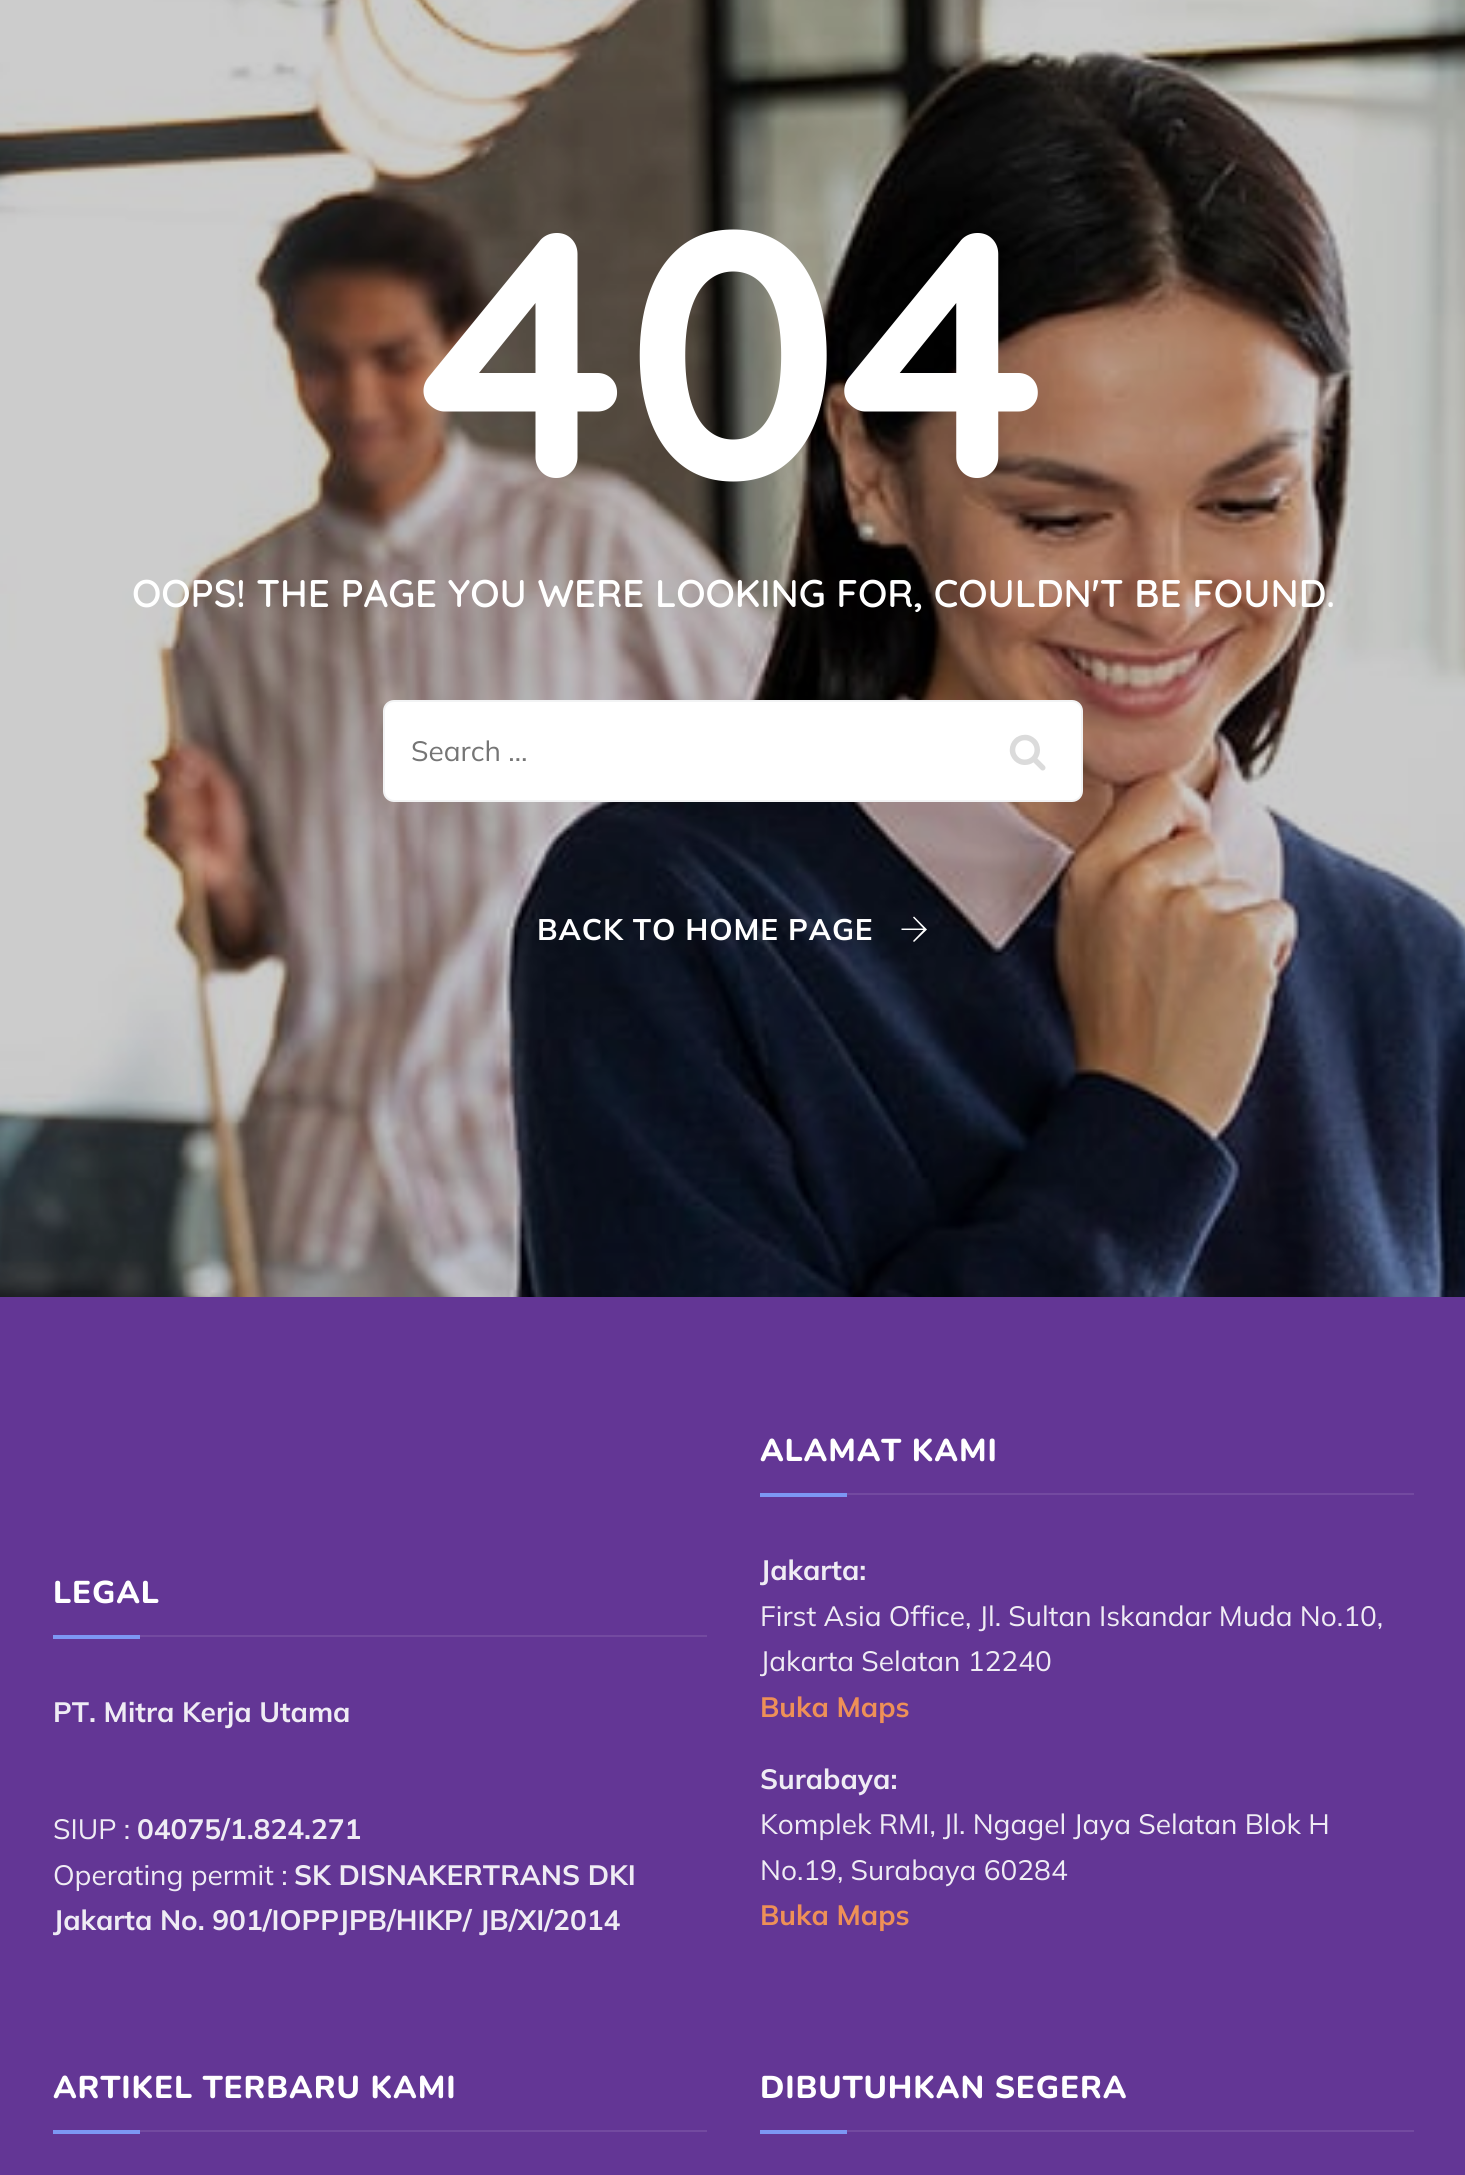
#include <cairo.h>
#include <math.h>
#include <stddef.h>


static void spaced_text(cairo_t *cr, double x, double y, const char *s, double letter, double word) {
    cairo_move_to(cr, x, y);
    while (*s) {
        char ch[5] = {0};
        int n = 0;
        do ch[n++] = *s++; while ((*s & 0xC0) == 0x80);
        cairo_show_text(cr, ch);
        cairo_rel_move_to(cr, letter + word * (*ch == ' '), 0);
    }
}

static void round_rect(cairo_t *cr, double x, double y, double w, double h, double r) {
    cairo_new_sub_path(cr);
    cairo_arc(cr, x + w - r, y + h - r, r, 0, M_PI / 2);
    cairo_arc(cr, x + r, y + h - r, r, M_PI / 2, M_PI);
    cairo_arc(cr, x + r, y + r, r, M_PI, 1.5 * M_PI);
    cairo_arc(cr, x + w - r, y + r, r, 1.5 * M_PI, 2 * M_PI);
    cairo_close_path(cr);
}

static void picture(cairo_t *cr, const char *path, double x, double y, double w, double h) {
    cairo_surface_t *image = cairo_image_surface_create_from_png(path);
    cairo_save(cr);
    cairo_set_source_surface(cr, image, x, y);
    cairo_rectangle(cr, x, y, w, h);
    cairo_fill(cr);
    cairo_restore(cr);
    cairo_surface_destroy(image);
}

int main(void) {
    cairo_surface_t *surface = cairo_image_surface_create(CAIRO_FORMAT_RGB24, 1465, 2175);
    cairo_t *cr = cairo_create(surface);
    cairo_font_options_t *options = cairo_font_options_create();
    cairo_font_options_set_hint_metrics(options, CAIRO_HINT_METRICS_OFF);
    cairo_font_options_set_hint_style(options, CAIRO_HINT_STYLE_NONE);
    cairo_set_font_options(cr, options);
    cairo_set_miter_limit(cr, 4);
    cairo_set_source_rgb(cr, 1, 1, 1);
    cairo_paint(cr);
    picture(cr, "img1.png", 0, 0, 1465, 1297);
    cairo_select_font_face(cr, "Quicksand", CAIRO_FONT_SLANT_NORMAL, CAIRO_FONT_WEIGHT_BOLD);
    cairo_set_font_size(cr, 350);
    cairo_set_source_rgb(cr, 1, 1, 1);
    cairo_move_to(cr, 420, 478);
    cairo_show_text(cr, "404");
    cairo_select_font_face(cr, "Quicksand SemiBold", CAIRO_FONT_SLANT_NORMAL, CAIRO_FONT_WEIGHT_NORMAL);
    cairo_set_font_size(cr, 38.5);
    cairo_move_to(cr, 132, 607);
    cairo_show_text(cr, "OOPS! THE PAGE YOU WERE LOOKING FOR, COULDN'T BE FOUND.");
    round_rect(cr, 384, 701, 698, 100, 10);
    cairo_fill_preserve(cr);
    cairo_set_source_rgb(cr, 0.949, 0.953, 0.957);
    cairo_stroke(cr);
    cairo_select_font_face(cr, "Mulish", CAIRO_FONT_SLANT_NORMAL, CAIRO_FONT_WEIGHT_NORMAL);
    cairo_set_font_size(cr, 28);
    cairo_set_source_rgb(cr, 0.459, 0.459, 0.459);
    cairo_move_to(cr, 411, 761);
    cairo_show_text(cr, "Search …");
    picture(cr, "img2.png", 1009, 734, 37, 37);
    cairo_select_font_face(cr, "Mulish", CAIRO_FONT_SLANT_NORMAL, CAIRO_FONT_WEIGHT_BOLD);
    cairo_set_font_size(cr, 29.75);
    cairo_set_source_rgb(cr, 1, 1, 1);
    spaced_text(cr, 537, 940, "BACK TO HOME PAGE", 0.9, 0);
    cairo_new_path(cr);
    cairo_move_to(cr, 927, 929.5);
    cairo_line_to(cr, 914, 942);
    cairo_line_to(cr, 913, 941);
    cairo_line_to(cr, 923.5, 930);
    cairo_line_to(cr, 901.5, 930);
    cairo_line_to(cr, 901.5, 928.5);
    cairo_line_to(cr, 923.5, 928.5);
    cairo_line_to(cr, 913, 917.5);
    cairo_line_to(cr, 914, 916.5);
    cairo_close_path(cr);
    cairo_fill(cr);
    cairo_set_source_rgb(cr, 0.388, 0.212, 0.584);
    cairo_rectangle(cr, 0, 1297, 1465, 878);
    cairo_fill(cr);
    cairo_set_source_rgb(cr, 0.451, 0.29, 0.627);
    cairo_rectangle(cr, 140, 1635, 567, 2);
    cairo_fill(cr);
    cairo_select_font_face(cr, "Nunito ExtraBold", CAIRO_FONT_SLANT_NORMAL, CAIRO_FONT_WEIGHT_NORMAL);
    cairo_set_font_size(cr, 31.5);
    cairo_set_source_rgb(cr, 1, 1, 1);
    spaced_text(cr, 53, 1603, "LEGAL", 0.9, 0);
    cairo_set_source_rgb(cr, 0.49, 0.592, 0.957);
    cairo_rectangle(cr, 53, 1635, 87, 4);
    cairo_fill(cr);
    cairo_select_font_face(cr, "Mulish", CAIRO_FONT_SLANT_NORMAL, CAIRO_FONT_WEIGHT_BOLD);
    cairo_set_font_size(cr, 28);
    cairo_set_source_rgb(cr, 0.937, 0.922, 0.957);
    cairo_move_to(cr, 53, 1722);
    cairo_show_text(cr, "PT. Mitra Kerja Utama");
    cairo_select_font_face(cr, "Mulish", CAIRO_FONT_SLANT_NORMAL, CAIRO_FONT_WEIGHT_NORMAL);
    cairo_move_to(cr, 53, 1839);
    cairo_show_text(cr, "SIUP :");
    cairo_select_font_face(cr, "Mulish", CAIRO_FONT_SLANT_NORMAL, CAIRO_FONT_WEIGHT_BOLD);
    cairo_move_to(cr, 137, 1839);
    cairo_show_text(cr, "04075/1.824.271");
    cairo_select_font_face(cr, "Mulish", CAIRO_FONT_SLANT_NORMAL, CAIRO_FONT_WEIGHT_NORMAL);
    cairo_move_to(cr, 53, 1885);
    cairo_show_text(cr, "Operating permit :");
    cairo_select_font_face(cr, "Mulish", CAIRO_FONT_SLANT_NORMAL, CAIRO_FONT_WEIGHT_BOLD);
    cairo_move_to(cr, 294, 1885);
    cairo_show_text(cr, "SK DISNAKERTRANS DKI");
    cairo_move_to(cr, 53, 1930);
    cairo_show_text(cr, "Jakarta No. 901/IOPPJPB/HIKP/ JB/XI/2014");
    cairo_set_source_rgb(cr, 0.451, 0.29, 0.627);
    cairo_rectangle(cr, 847, 1493, 567, 2);
    cairo_fill(cr);
    cairo_select_font_face(cr, "Nunito ExtraBold", CAIRO_FONT_SLANT_NORMAL, CAIRO_FONT_WEIGHT_NORMAL);
    cairo_set_font_size(cr, 31.5);
    cairo_set_source_rgb(cr, 1, 1, 1);
    spaced_text(cr, 760, 1461, "ALAMAT KAMI", 0.9, 0);
    cairo_set_source_rgb(cr, 0.49, 0.592, 0.957);
    cairo_rectangle(cr, 760, 1493, 87, 4);
    cairo_fill(cr);
    cairo_select_font_face(cr, "Mulish", CAIRO_FONT_SLANT_NORMAL, CAIRO_FONT_WEIGHT_BOLD);
    cairo_set_font_size(cr, 28);
    cairo_set_source_rgb(cr, 0.937, 0.922, 0.957);
    cairo_move_to(cr, 760, 1580);
    cairo_show_text(cr, "Jakarta:");
    cairo_select_font_face(cr, "Mulish", CAIRO_FONT_SLANT_NORMAL, CAIRO_FONT_WEIGHT_NORMAL);
    cairo_move_to(cr, 760, 1626);
    cairo_show_text(cr, "First Asia Office, Jl. Sultan Iskandar Muda No.10,");
    cairo_move_to(cr, 760, 1671);
    cairo_show_text(cr, "Jakarta Selatan 12240");
    cairo_select_font_face(cr, "Mulish", CAIRO_FONT_SLANT_NORMAL, CAIRO_FONT_WEIGHT_BOLD);
    cairo_set_source_rgb(cr, 0.933, 0.565, 0.341);
    cairo_move_to(cr, 760, 1717);
    cairo_show_text(cr, "Buka Maps");
    cairo_set_source_rgb(cr, 0.937, 0.922, 0.957);
    cairo_move_to(cr, 760, 1789);
    cairo_show_text(cr, "Surabaya:");
    cairo_select_font_face(cr, "Mulish", CAIRO_FONT_SLANT_NORMAL, CAIRO_FONT_WEIGHT_NORMAL);
    cairo_move_to(cr, 760, 1834);
    cairo_show_text(cr, "Komplek RMI, Jl. Ngagel Jaya Selatan Blok H");
    cairo_move_to(cr, 760, 1880);
    cairo_show_text(cr, "No.19, Surabaya 60284");
    cairo_select_font_face(cr, "Mulish", CAIRO_FONT_SLANT_NORMAL, CAIRO_FONT_WEIGHT_BOLD);
    cairo_set_source_rgb(cr, 0.933, 0.565, 0.341);
    cairo_move_to(cr, 760, 1925);
    cairo_show_text(cr, "Buka Maps");
    cairo_set_source_rgb(cr, 0.451, 0.29, 0.627);
    cairo_rectangle(cr, 140, 2130, 567, 2);
    cairo_fill(cr);
    cairo_select_font_face(cr, "Nunito ExtraBold", CAIRO_FONT_SLANT_NORMAL, CAIRO_FONT_WEIGHT_NORMAL);
    cairo_set_font_size(cr, 31.5);
    cairo_set_source_rgb(cr, 1, 1, 1);
    spaced_text(cr, 53, 2098, "ARTIKEL TERBARU KAMI", 0.9, 0);
    cairo_set_source_rgb(cr, 0.49, 0.592, 0.957);
    cairo_rectangle(cr, 53, 2130, 87, 4);
    cairo_fill(cr);
    cairo_set_source_rgb(cr, 0.451, 0.29, 0.627);
    cairo_rectangle(cr, 847, 2130, 567, 2);
    cairo_fill(cr);
    cairo_set_source_rgb(cr, 1, 1, 1);
    spaced_text(cr, 760, 2098, "DIBUTUHKAN SEGERA", 0.9, 0);
    cairo_set_source_rgb(cr, 0.49, 0.592, 0.957);
    cairo_rectangle(cr, 760, 2130, 87, 4);
    cairo_fill(cr);
    cairo_surface_write_to_png(surface, "page.png");
    cairo_font_options_destroy(options);
    cairo_destroy(cr);
    cairo_surface_destroy(surface);
    return 0;
}
